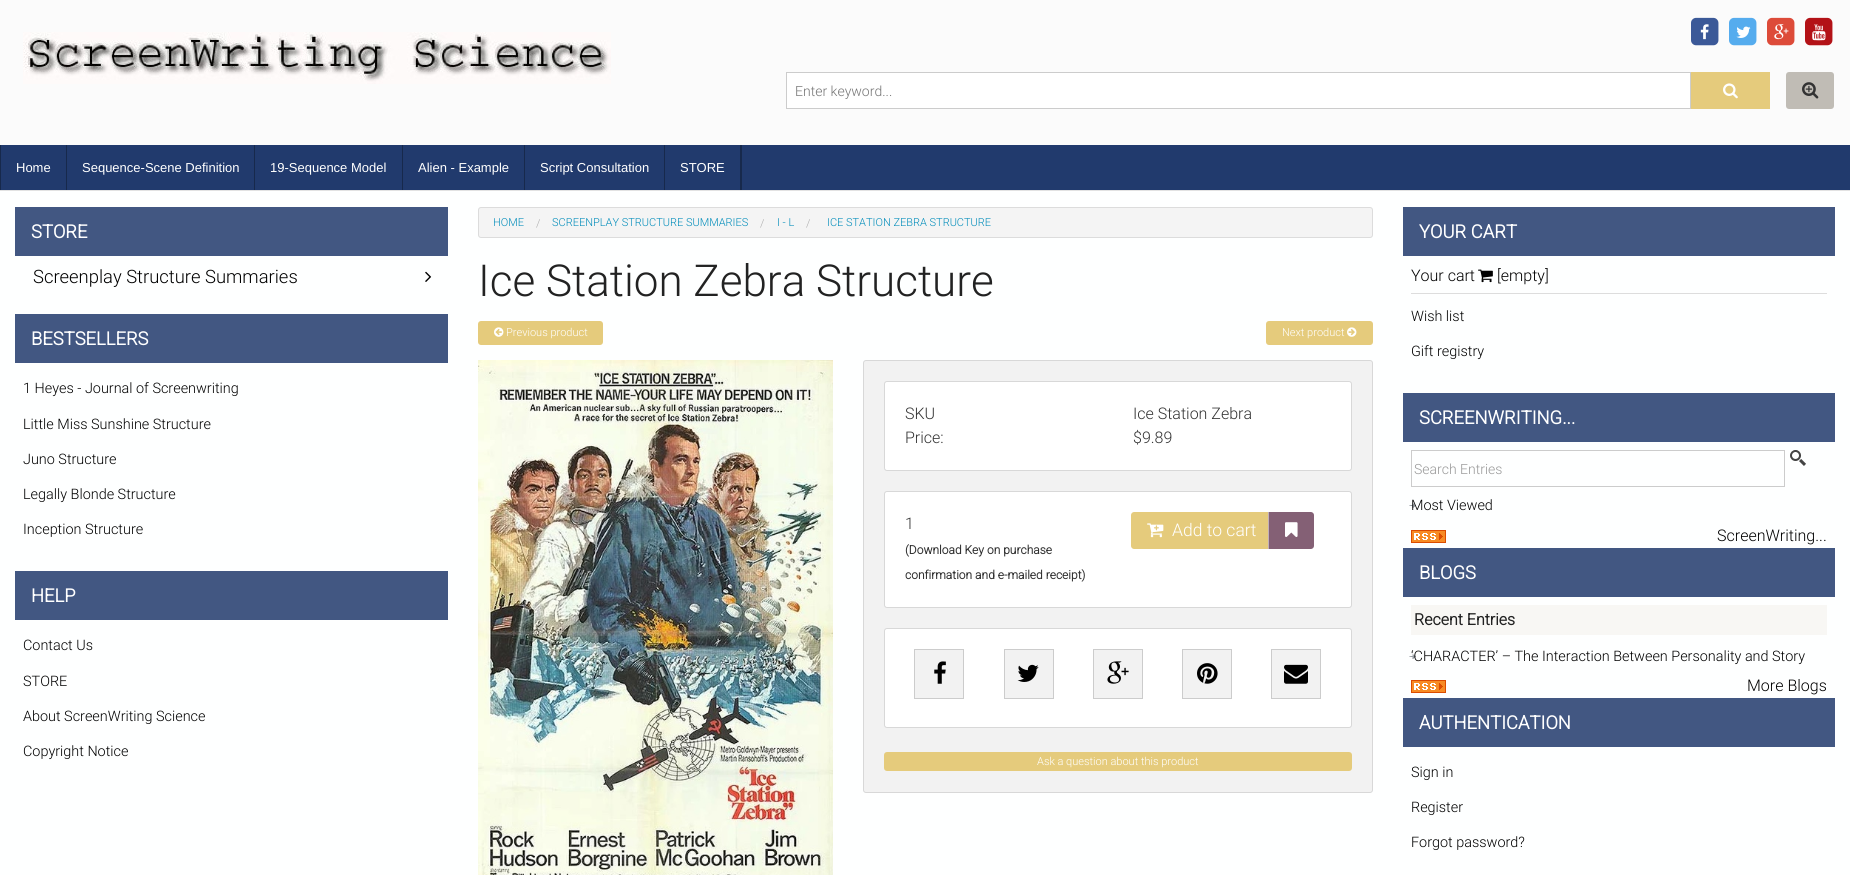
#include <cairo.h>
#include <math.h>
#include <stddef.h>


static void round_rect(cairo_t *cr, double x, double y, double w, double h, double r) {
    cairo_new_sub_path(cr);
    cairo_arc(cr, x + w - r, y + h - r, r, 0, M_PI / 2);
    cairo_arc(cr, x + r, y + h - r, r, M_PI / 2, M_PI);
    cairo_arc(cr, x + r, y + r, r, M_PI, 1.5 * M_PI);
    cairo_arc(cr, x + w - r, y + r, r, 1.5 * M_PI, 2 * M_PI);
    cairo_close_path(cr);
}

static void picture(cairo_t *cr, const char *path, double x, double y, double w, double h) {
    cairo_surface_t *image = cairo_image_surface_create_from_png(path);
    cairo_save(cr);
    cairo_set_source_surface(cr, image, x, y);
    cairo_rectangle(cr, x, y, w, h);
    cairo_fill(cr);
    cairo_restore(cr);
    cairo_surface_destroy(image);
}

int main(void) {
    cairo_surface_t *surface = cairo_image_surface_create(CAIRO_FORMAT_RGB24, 1850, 875);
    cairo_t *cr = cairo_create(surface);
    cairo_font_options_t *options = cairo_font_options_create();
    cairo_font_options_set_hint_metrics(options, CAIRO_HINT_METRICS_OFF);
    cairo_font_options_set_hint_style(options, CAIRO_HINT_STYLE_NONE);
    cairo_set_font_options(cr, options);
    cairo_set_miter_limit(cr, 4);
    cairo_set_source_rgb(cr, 0.996, 1, 1);
    cairo_paint(cr);
    cairo_set_source_rgb(cr, 0.984, 0.984, 0.984);
    cairo_rectangle(cr, 0, 0, 1850, 145);
    cairo_fill(cr);
    cairo_set_source_rgb(cr, 0.886, 0.886, 0.886);
    cairo_rectangle(cr, 0, 190, 1850, 1);
    cairo_fill(cr);
    picture(cr, "img1.png", 23, 32, 588, 52);
    picture(cr, "img2.png", 1691, 17, 28, 29);
    picture(cr, "img3.png", 1700, 24, 9, 16);
    picture(cr, "img4.png", 1729, 17, 28, 29);
    picture(cr, "img5.png", 1736, 26, 15, 12);
    picture(cr, "img6.png", 1767, 17, 28, 29);
    picture(cr, "img7.png", 1774, 24, 15, 16);
    picture(cr, "img8.png", 1805, 17, 28, 29);
    picture(cr, "img9.png", 1812, 24, 14, 17);
    cairo_set_source_rgb(cr, 1, 1, 1);
    cairo_rectangle(cr, 786.5, 72.5, 904, 36);
    cairo_fill_preserve(cr);
    cairo_set_source_rgb(cr, 0.8, 0.8, 0.8);
    cairo_set_line_width(cr, 1);
    cairo_stroke(cr);
    cairo_select_font_face(cr, "Roboto Light", CAIRO_FONT_SLANT_NORMAL, CAIRO_FONT_WEIGHT_NORMAL);
    cairo_set_font_size(cr, 14);
    cairo_set_source_rgb(cr, 0.459, 0.459, 0.459);
    cairo_move_to(cr, 795, 96);
    cairo_show_text(cr, "Enter keyword...");
    cairo_set_source_rgb(cr, 0.898, 0.796, 0.486);
    cairo_rectangle(cr, 1691, 72, 79, 37);
    cairo_fill(cr);
    picture(cr, "img10.png", 1723, 83, 15, 16);
    cairo_set_source_rgb(cr, 0.753, 0.737, 0.71);
    round_rect(cr, 1786, 72, 48, 37, 3);
    cairo_fill(cr);
    picture(cr, "img11.png", 1802, 82, 17, 17);
    cairo_set_source_rgb(cr, 0.129, 0.227, 0.427);
    cairo_rectangle(cr, 1, 145, 1849, 45);
    cairo_fill(cr);
    cairo_set_source_rgb(cr, 0.09, 0.161, 0.298);
    cairo_rectangle(cr, 0, 145, 1, 45);
    cairo_fill(cr);
    cairo_select_font_face(cr, "Liberation Sans", CAIRO_FONT_SLANT_NORMAL, CAIRO_FONT_WEIGHT_NORMAL);
    cairo_set_font_size(cr, 13);
    cairo_set_source_rgb(cr, 1, 1, 1);
    cairo_move_to(cr, 16, 172);
    cairo_show_text(cr, "Home");
    cairo_set_source_rgb(cr, 0.09, 0.161, 0.298);
    cairo_rectangle(cr, 66, 145, 1, 45);
    cairo_fill(cr);
    cairo_set_source_rgb(cr, 1, 1, 1);
    cairo_move_to(cr, 82, 172);
    cairo_show_text(cr, "Sequence-Scene Definition");
    cairo_set_source_rgb(cr, 0.09, 0.161, 0.298);
    cairo_rectangle(cr, 254, 145, 1, 45);
    cairo_fill(cr);
    cairo_set_source_rgb(cr, 1, 1, 1);
    cairo_move_to(cr, 270, 172);
    cairo_show_text(cr, "19-Sequence Model");
    cairo_set_source_rgb(cr, 0.09, 0.161, 0.298);
    cairo_rectangle(cr, 402, 145, 1, 45);
    cairo_fill(cr);
    cairo_set_source_rgb(cr, 1, 1, 1);
    cairo_move_to(cr, 418, 172);
    cairo_show_text(cr, "Alien - Example");
    cairo_set_source_rgb(cr, 0.09, 0.161, 0.298);
    cairo_rectangle(cr, 524, 145, 1, 45);
    cairo_fill(cr);
    cairo_set_source_rgb(cr, 1, 1, 1);
    cairo_move_to(cr, 540, 172);
    cairo_show_text(cr, "Script Consultation");
    cairo_set_source_rgb(cr, 0.09, 0.161, 0.298);
    cairo_rectangle(cr, 664, 145, 1, 45);
    cairo_fill(cr);
    cairo_set_source_rgb(cr, 1, 1, 1);
    cairo_move_to(cr, 680, 172);
    cairo_show_text(cr, "STORE");
    cairo_set_source_rgb(cr, 0.09, 0.161, 0.298);
    cairo_rectangle(cr, 740, 145, 2, 45);
    cairo_fill(cr);
    cairo_set_source_rgb(cr, 0.259, 0.341, 0.51);
    cairo_rectangle(cr, 15, 207, 433, 49);
    cairo_fill(cr);
    cairo_select_font_face(cr, "Roboto", CAIRO_FONT_SLANT_NORMAL, CAIRO_FONT_WEIGHT_BOLD);
    cairo_set_font_size(cr, 18.4);
    cairo_set_source_rgb(cr, 1, 1, 1);
    cairo_move_to(cr, 31, 238);
    cairo_show_text(cr, "STORE");
    cairo_select_font_face(cr, "Roboto Light", CAIRO_FONT_SLANT_NORMAL, CAIRO_FONT_WEIGHT_NORMAL);
    cairo_set_source_rgb(cr, 0, 0, 0);
    cairo_move_to(cr, 33, 283);
    cairo_show_text(cr, "Screenplay Structure Summaries");
    picture(cr, "img12.png", 425, 271, 7, 11);
    cairo_set_source_rgb(cr, 0.259, 0.341, 0.51);
    cairo_rectangle(cr, 15, 314, 433, 49);
    cairo_fill(cr);
    cairo_select_font_face(cr, "Roboto", CAIRO_FONT_SLANT_NORMAL, CAIRO_FONT_WEIGHT_BOLD);
    cairo_set_source_rgb(cr, 1, 1, 1);
    cairo_move_to(cr, 31, 345);
    cairo_show_text(cr, "BESTSELLERS");
    cairo_select_font_face(cr, "Roboto Light", CAIRO_FONT_SLANT_NORMAL, CAIRO_FONT_WEIGHT_NORMAL);
    cairo_set_font_size(cr, 14.4);
    cairo_set_source_rgb(cr, 0, 0, 0);
    cairo_move_to(cr, 23, 393);
    cairo_show_text(cr, "1 Heyes - Journal of Screenwriting");
    cairo_move_to(cr, 23, 429);
    cairo_show_text(cr, "Little Miss Sunshine Structure");
    cairo_move_to(cr, 23, 464);
    cairo_show_text(cr, "Juno Structure");
    cairo_move_to(cr, 23, 499);
    cairo_show_text(cr, "Legally Blonde Structure");
    cairo_move_to(cr, 23, 534);
    cairo_show_text(cr, "Inception Structure");
    cairo_set_source_rgb(cr, 0.259, 0.341, 0.51);
    cairo_rectangle(cr, 15, 571, 433, 49);
    cairo_fill(cr);
    cairo_select_font_face(cr, "Roboto", CAIRO_FONT_SLANT_NORMAL, CAIRO_FONT_WEIGHT_BOLD);
    cairo_set_font_size(cr, 18.4);
    cairo_set_source_rgb(cr, 1, 1, 1);
    cairo_move_to(cr, 31, 602);
    cairo_show_text(cr, "HELP");
    cairo_select_font_face(cr, "Roboto Light", CAIRO_FONT_SLANT_NORMAL, CAIRO_FONT_WEIGHT_NORMAL);
    cairo_set_font_size(cr, 14.4);
    cairo_set_source_rgb(cr, 0, 0, 0);
    cairo_move_to(cr, 23, 650);
    cairo_show_text(cr, "Contact Us");
    cairo_move_to(cr, 23, 686);
    cairo_show_text(cr, "STORE");
    cairo_move_to(cr, 23, 721);
    cairo_show_text(cr, "About ScreenWriting Science");
    cairo_move_to(cr, 23, 756);
    cairo_show_text(cr, "Copyright Notice");
    cairo_set_source_rgb(cr, 0.957, 0.957, 0.957);
    round_rect(cr, 478.5, 207.5, 894, 30, 2.5);
    cairo_fill_preserve(cr);
    cairo_set_source_rgb(cr, 0.863, 0.863, 0.863);
    cairo_stroke(cr);
    cairo_set_font_size(cr, 11);
    cairo_set_source_rgb(cr, 0, 0.549, 0.729);
    cairo_move_to(cr, 493, 226);
    cairo_show_text(cr, "HOME");
    cairo_set_source_rgb(cr, 0.667, 0.667, 0.667);
    cairo_move_to(cr, 536, 227);
    cairo_show_text(cr, "/");
    cairo_set_source_rgb(cr, 0, 0.549, 0.729);
    cairo_move_to(cr, 552, 226);
    cairo_show_text(cr, "SCREENPLAY STRUCTURE SUMMARIES");
    cairo_set_source_rgb(cr, 0.667, 0.667, 0.667);
    cairo_move_to(cr, 760, 227);
    cairo_show_text(cr, "/");
    cairo_set_source_rgb(cr, 0, 0.549, 0.729);
    cairo_move_to(cr, 777, 226);
    cairo_show_text(cr, "I - L");
    cairo_set_source_rgb(cr, 0.667, 0.667, 0.667);
    cairo_move_to(cr, 806, 227);
    cairo_show_text(cr, "/");
    cairo_set_source_rgb(cr, 0, 0.549, 0.729);
    cairo_move_to(cr, 827, 226);
    cairo_show_text(cr, "ICE STATION ZEBRA STRUCTURE");
    cairo_set_font_size(cr, 44);
    cairo_set_source_rgb(cr, 0.133, 0.133, 0.133);
    cairo_move_to(cr, 478, 296);
    cairo_show_text(cr, "Ice Station Zebra Structure");
    cairo_set_source_rgb(cr, 0.898, 0.796, 0.486);
    round_rect(cr, 478, 321, 125, 24, 3);
    cairo_fill(cr);
    picture(cr, "img13.png", 494, 327, 10, 10);
    cairo_set_font_size(cr, 11);
    cairo_set_source_rgb(cr, 1, 1, 1);
    cairo_move_to(cr, 506, 336);
    cairo_show_text(cr, "Previous product");
    cairo_set_source_rgb(cr, 0.898, 0.796, 0.486);
    round_rect(cr, 1266, 321, 107, 24, 3);
    cairo_fill(cr);
    cairo_set_source_rgb(cr, 1, 1, 1);
    cairo_move_to(cr, 1282, 336);
    cairo_show_text(cr, "Next product");
    picture(cr, "img14.png", 1347, 327, 10, 10);
    picture(cr, "img15.png", 478, 360, 355, 515);
    cairo_set_source_rgb(cr, 0.949, 0.949, 0.949);
    round_rect(cr, 863.5, 360.5, 509, 432, 2.5);
    cairo_fill_preserve(cr);
    cairo_set_source_rgb(cr, 0.847, 0.847, 0.847);
    cairo_stroke(cr);
    cairo_set_source_rgb(cr, 1, 1, 1);
    round_rect(cr, 884.5, 381.5, 467, 89, 2.5);
    cairo_fill_preserve(cr);
    cairo_set_source_rgb(cr, 0.847, 0.847, 0.847);
    cairo_stroke(cr);
    cairo_set_font_size(cr, 16);
    cairo_set_source_rgb(cr, 0.2, 0.2, 0.2);
    cairo_move_to(cr, 905, 419);
    cairo_show_text(cr, "SKU");
    cairo_move_to(cr, 1133, 419);
    cairo_show_text(cr, "Ice Station Zebra");
    cairo_move_to(cr, 905, 443);
    cairo_show_text(cr, "Price:");
    cairo_move_to(cr, 1133, 443);
    cairo_show_text(cr, "$9.89");
    cairo_set_source_rgb(cr, 1, 1, 1);
    round_rect(cr, 884.5, 491.5, 467, 116, 2.5);
    cairo_fill_preserve(cr);
    cairo_set_source_rgb(cr, 0.847, 0.847, 0.847);
    cairo_stroke(cr);
    cairo_set_source_rgb(cr, 0.2, 0.2, 0.2);
    cairo_move_to(cr, 905, 529);
    cairo_show_text(cr, "1");
    cairo_select_font_face(cr, "Roboto", CAIRO_FONT_SLANT_NORMAL, CAIRO_FONT_WEIGHT_BOLD);
    cairo_set_font_size(cr, 12);
    cairo_move_to(cr, 905, 554);
    cairo_show_text(cr, "(Download Key on purchase");
    cairo_move_to(cr, 905, 579);
    cairo_show_text(cr, "confirmation and e-mailed receipt)");
    cairo_set_source_rgb(cr, 0.898, 0.796, 0.486);
    cairo_new_path(cr);
    cairo_move_to(cr, 1134, 512);
    cairo_line_to(cr, 1272, 512);
    cairo_line_to(cr, 1272, 549);
    cairo_line_to(cr, 1134, 549);
    cairo_curve_to(cr, 1132.5, 549, 1131, 547.5, 1131, 546);
    cairo_line_to(cr, 1131, 515);
    cairo_curve_to(cr, 1131, 513.5, 1132.5, 512, 1134, 512);
    cairo_close_path(cr);
    cairo_fill(cr);
    picture(cr, "img16.png", 1147, 523, 17, 15);
    cairo_select_font_face(cr, "Roboto Light", CAIRO_FONT_SLANT_NORMAL, CAIRO_FONT_WEIGHT_NORMAL);
    cairo_set_font_size(cr, 17.5);
    cairo_set_source_rgb(cr, 1, 1, 1);
    cairo_move_to(cr, 1172, 536);
    cairo_show_text(cr, "Add to cart");
    cairo_set_source_rgb(cr, 0.518, 0.376, 0.459);
    cairo_new_path(cr);
    cairo_move_to(cr, 1268, 512);
    cairo_line_to(cr, 1311, 512);
    cairo_curve_to(cr, 1312.5, 512, 1314, 513.5, 1314, 515);
    cairo_line_to(cr, 1314, 546);
    cairo_curve_to(cr, 1314, 547.5, 1312.5, 549, 1311, 549);
    cairo_line_to(cr, 1268, 549);
    cairo_close_path(cr);
    cairo_fill(cr);
    cairo_set_source_rgb(cr, 0.761, 0.69, 0.729);
    cairo_rectangle(cr, 1268, 512, 1, 37);
    cairo_fill(cr);
    picture(cr, "img17.png", 1285, 522, 13, 15);
    cairo_set_source_rgb(cr, 1, 1, 1);
    round_rect(cr, 884.5, 628.5, 467, 99, 2.5);
    cairo_fill_preserve(cr);
    cairo_set_source_rgb(cr, 0.847, 0.847, 0.847);
    cairo_stroke(cr);
    cairo_rectangle(cr, 914.5, 649.5, 49, 49);
    cairo_set_source_rgb(cr, 0.8, 0.8, 0.8);
    cairo_stroke(cr);
    cairo_set_source_rgb(cr, 0.949, 0.949, 0.949);
    cairo_rectangle(cr, 915, 650, 48, 48);
    cairo_fill(cr);
    picture(cr, "img18.png", 934, 661, 12, 23);
    cairo_rectangle(cr, 1004.5, 649.5, 49, 49);
    cairo_set_source_rgb(cr, 0.8, 0.8, 0.8);
    cairo_stroke(cr);
    cairo_set_source_rgb(cr, 0.949, 0.949, 0.949);
    cairo_rectangle(cr, 1005, 650, 48, 48);
    cairo_fill(cr);
    picture(cr, "img19.png", 1017, 664, 22, 18);
    cairo_rectangle(cr, 1093.5, 649.5, 49, 49);
    cairo_set_source_rgb(cr, 0.8, 0.8, 0.8);
    cairo_stroke(cr);
    cairo_set_source_rgb(cr, 0.949, 0.949, 0.949);
    cairo_rectangle(cr, 1094, 650, 48, 48);
    cairo_fill(cr);
    picture(cr, "img20.png", 1107, 661, 22, 23);
    cairo_rectangle(cr, 1182.5, 649.5, 49, 49);
    cairo_set_source_rgb(cr, 0.8, 0.8, 0.8);
    cairo_stroke(cr);
    cairo_set_source_rgb(cr, 0.949, 0.949, 0.949);
    cairo_rectangle(cr, 1183, 650, 48, 48);
    cairo_fill(cr);
    picture(cr, "img21.png", 1197, 663, 21, 21);
    cairo_rectangle(cr, 1271.5, 649.5, 49, 49);
    cairo_set_source_rgb(cr, 0.8, 0.8, 0.8);
    cairo_stroke(cr);
    cairo_set_source_rgb(cr, 0.949, 0.949, 0.949);
    cairo_rectangle(cr, 1272, 650, 48, 48);
    cairo_fill(cr);
    picture(cr, "img22.png", 1284, 664, 24, 20);
    cairo_set_source_rgb(cr, 0.898, 0.796, 0.486);
    round_rect(cr, 884, 752, 468, 19, 3);
    cairo_fill(cr);
    cairo_set_font_size(cr, 11);
    cairo_set_source_rgb(cr, 1, 1, 1);
    cairo_move_to(cr, 1037, 765);
    cairo_show_text(cr, "Ask a question about this product");
    cairo_set_source_rgb(cr, 0.259, 0.341, 0.51);
    cairo_rectangle(cr, 1403, 207, 432, 49);
    cairo_fill(cr);
    cairo_select_font_face(cr, "Roboto", CAIRO_FONT_SLANT_NORMAL, CAIRO_FONT_WEIGHT_BOLD);
    cairo_set_font_size(cr, 18.4);
    cairo_set_source_rgb(cr, 1, 1, 1);
    cairo_move_to(cr, 1419, 238);
    cairo_show_text(cr, "YOUR CART");
    cairo_select_font_face(cr, "Roboto Light", CAIRO_FONT_SLANT_NORMAL, CAIRO_FONT_WEIGHT_NORMAL);
    cairo_set_font_size(cr, 16);
    cairo_set_source_rgb(cr, 0, 0, 0);
    cairo_move_to(cr, 1411, 281);
    cairo_show_text(cr, "Your cart");
    picture(cr, "img23.png", 1478, 269, 15, 14);
    cairo_move_to(cr, 1497, 281);
    cairo_show_text(cr, "[empty]");
    cairo_set_source_rgb(cr, 0.867, 0.867, 0.867);
    cairo_rectangle(cr, 1411, 293, 416, 1);
    cairo_fill(cr);
    cairo_set_font_size(cr, 14.4);
    cairo_set_source_rgb(cr, 0, 0, 0);
    cairo_move_to(cr, 1411, 321);
    cairo_show_text(cr, "Wish list");
    cairo_move_to(cr, 1411, 356);
    cairo_show_text(cr, "Gift registry");
    cairo_set_source_rgb(cr, 0.259, 0.341, 0.51);
    cairo_rectangle(cr, 1403, 393, 432, 49);
    cairo_fill(cr);
    cairo_select_font_face(cr, "Roboto", CAIRO_FONT_SLANT_NORMAL, CAIRO_FONT_WEIGHT_BOLD);
    cairo_set_font_size(cr, 18.4);
    cairo_set_source_rgb(cr, 1, 1, 1);
    cairo_move_to(cr, 1419, 424);
    cairo_show_text(cr, "SCREENWRITING...");
    picture(cr, "img24.png", 1790, 450, 16, 16);
    cairo_rectangle(cr, 1411.5, 450.5, 373, 36);
    cairo_set_source_rgb(cr, 0.8, 0.8, 0.8);
    cairo_stroke(cr);
    cairo_select_font_face(cr, "Roboto Light", CAIRO_FONT_SLANT_NORMAL, CAIRO_FONT_WEIGHT_NORMAL);
    cairo_set_font_size(cr, 14);
    cairo_set_source_rgb(cr, 0.6, 0.6, 0.6);
    cairo_move_to(cr, 1414, 474);
    cairo_show_text(cr, "Search Entries");
    picture(cr, "img25.png", 1409, 503, 7, 5);
    cairo_set_font_size(cr, 14.4);
    cairo_set_source_rgb(cr, 0, 0, 0);
    cairo_move_to(cr, 1411, 510);
    cairo_show_text(cr, "Most Viewed");
    picture(cr, "img26.png", 1411, 530, 35, 13);
    cairo_set_font_size(cr, 16);
    cairo_move_to(cr, 1717, 541);
    cairo_show_text(cr, "ScreenWriting...");
    cairo_set_source_rgb(cr, 0.259, 0.341, 0.51);
    cairo_rectangle(cr, 1403, 548, 432, 49);
    cairo_fill(cr);
    cairo_select_font_face(cr, "Roboto", CAIRO_FONT_SLANT_NORMAL, CAIRO_FONT_WEIGHT_BOLD);
    cairo_set_font_size(cr, 18.4);
    cairo_set_source_rgb(cr, 1, 1, 1);
    cairo_move_to(cr, 1419, 579);
    cairo_show_text(cr, "BLOGS");
    cairo_set_source_rgb(cr, 0.969, 0.965, 0.957);
    cairo_rectangle(cr, 1411, 605, 416, 30);
    cairo_fill(cr);
    cairo_set_font_size(cr, 16);
    cairo_set_source_rgb(cr, 0.133, 0.133, 0.133);
    cairo_move_to(cr, 1414, 625);
    cairo_show_text(cr, "Recent Entries");
    picture(cr, "img25.png", 1409, 654, 7, 5);
    cairo_select_font_face(cr, "Roboto Light", CAIRO_FONT_SLANT_NORMAL, CAIRO_FONT_WEIGHT_NORMAL);
    cairo_set_font_size(cr, 14.4);
    cairo_set_source_rgb(cr, 0, 0, 0);
    cairo_move_to(cr, 1411, 661);
    cairo_show_text(cr, "‘CHARACTER’ – The Interaction Between Personality and Story");
    picture(cr, "img26.png", 1411, 680, 35, 13);
    cairo_set_font_size(cr, 16);
    cairo_move_to(cr, 1747, 691);
    cairo_show_text(cr, "More Blogs");
    cairo_set_source_rgb(cr, 0.259, 0.341, 0.51);
    cairo_rectangle(cr, 1403, 698, 432, 49);
    cairo_fill(cr);
    cairo_select_font_face(cr, "Roboto", CAIRO_FONT_SLANT_NORMAL, CAIRO_FONT_WEIGHT_BOLD);
    cairo_set_font_size(cr, 18.4);
    cairo_set_source_rgb(cr, 1, 1, 1);
    cairo_move_to(cr, 1419, 729);
    cairo_show_text(cr, "AUTHENTICATION");
    cairo_select_font_face(cr, "Roboto Light", CAIRO_FONT_SLANT_NORMAL, CAIRO_FONT_WEIGHT_NORMAL);
    cairo_set_font_size(cr, 14.4);
    cairo_set_source_rgb(cr, 0, 0, 0);
    cairo_move_to(cr, 1411, 777);
    cairo_show_text(cr, "Sign in");
    cairo_move_to(cr, 1411, 812);
    cairo_show_text(cr, "Register");
    cairo_move_to(cr, 1411, 847);
    cairo_show_text(cr, "Forgot password?");
    cairo_surface_write_to_png(surface, "page.png");
    cairo_font_options_destroy(options);
    cairo_destroy(cr);
    cairo_surface_destroy(surface);
    return 0;
}
